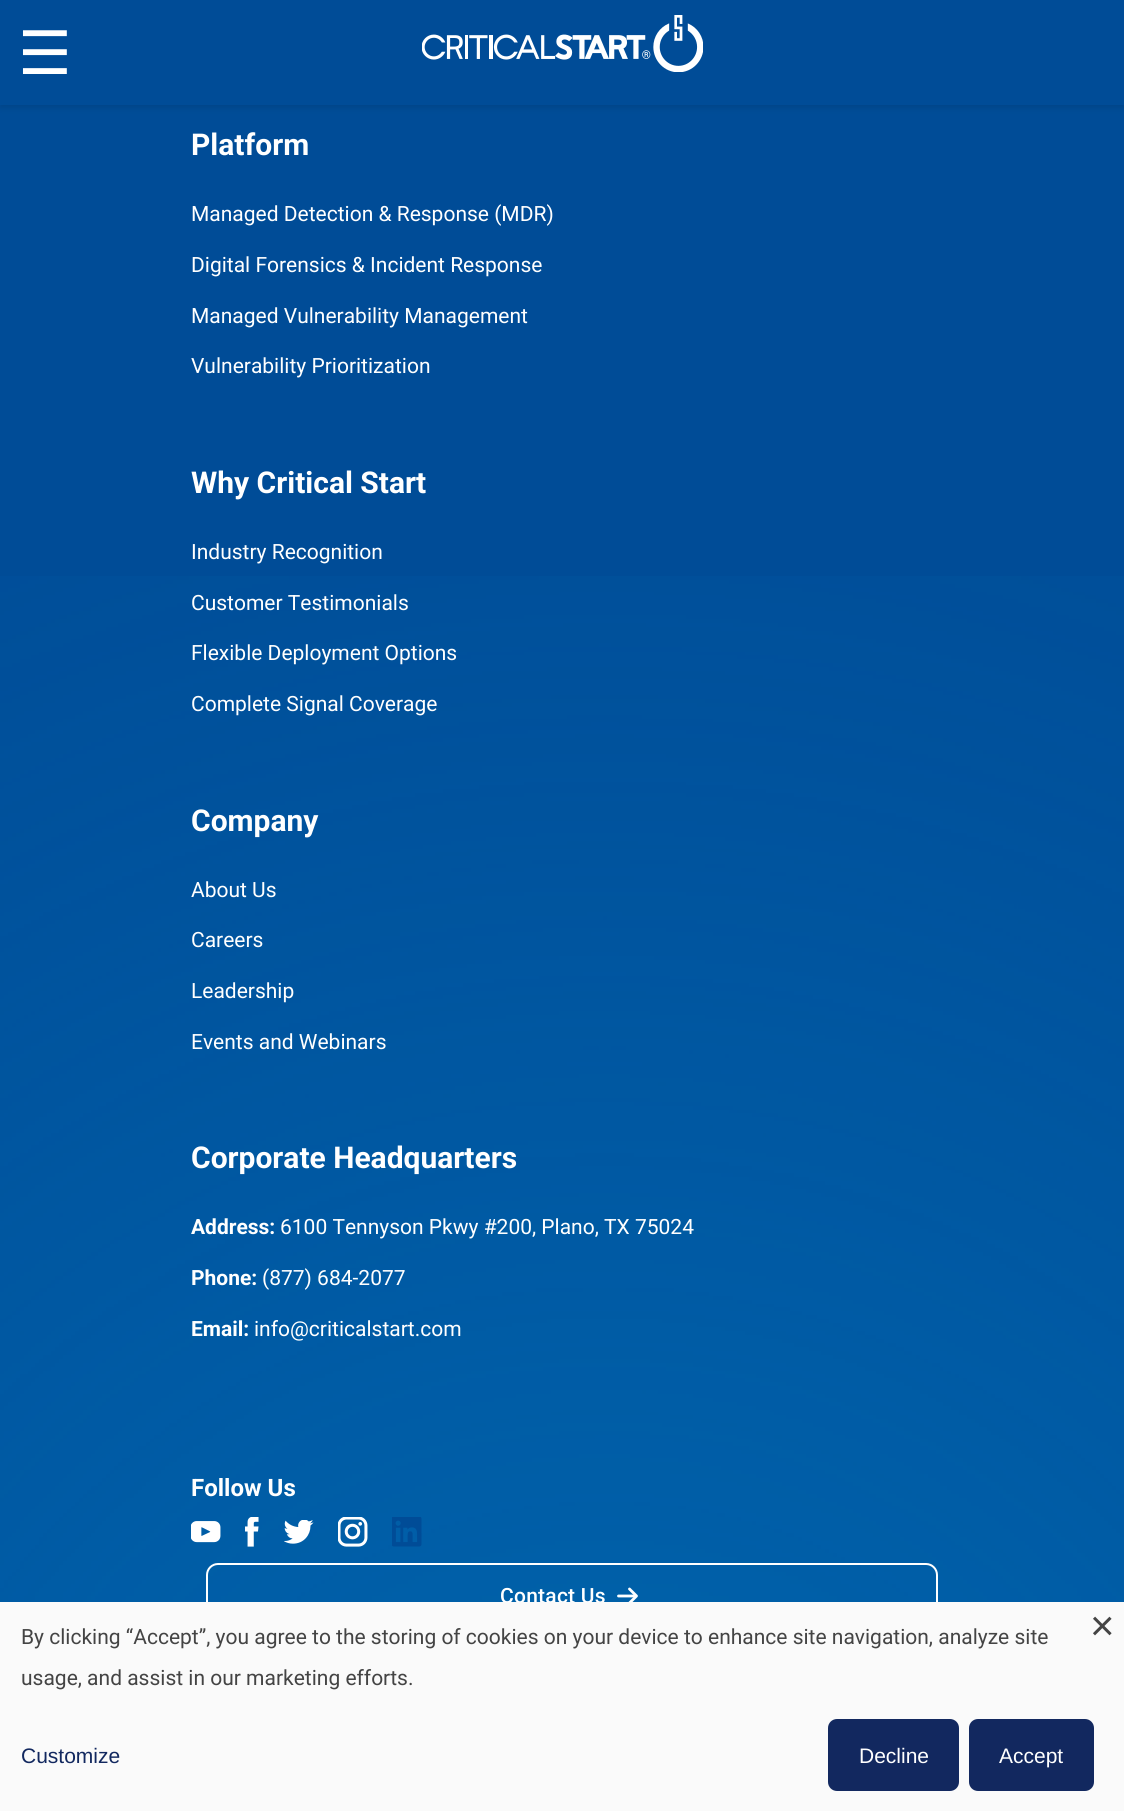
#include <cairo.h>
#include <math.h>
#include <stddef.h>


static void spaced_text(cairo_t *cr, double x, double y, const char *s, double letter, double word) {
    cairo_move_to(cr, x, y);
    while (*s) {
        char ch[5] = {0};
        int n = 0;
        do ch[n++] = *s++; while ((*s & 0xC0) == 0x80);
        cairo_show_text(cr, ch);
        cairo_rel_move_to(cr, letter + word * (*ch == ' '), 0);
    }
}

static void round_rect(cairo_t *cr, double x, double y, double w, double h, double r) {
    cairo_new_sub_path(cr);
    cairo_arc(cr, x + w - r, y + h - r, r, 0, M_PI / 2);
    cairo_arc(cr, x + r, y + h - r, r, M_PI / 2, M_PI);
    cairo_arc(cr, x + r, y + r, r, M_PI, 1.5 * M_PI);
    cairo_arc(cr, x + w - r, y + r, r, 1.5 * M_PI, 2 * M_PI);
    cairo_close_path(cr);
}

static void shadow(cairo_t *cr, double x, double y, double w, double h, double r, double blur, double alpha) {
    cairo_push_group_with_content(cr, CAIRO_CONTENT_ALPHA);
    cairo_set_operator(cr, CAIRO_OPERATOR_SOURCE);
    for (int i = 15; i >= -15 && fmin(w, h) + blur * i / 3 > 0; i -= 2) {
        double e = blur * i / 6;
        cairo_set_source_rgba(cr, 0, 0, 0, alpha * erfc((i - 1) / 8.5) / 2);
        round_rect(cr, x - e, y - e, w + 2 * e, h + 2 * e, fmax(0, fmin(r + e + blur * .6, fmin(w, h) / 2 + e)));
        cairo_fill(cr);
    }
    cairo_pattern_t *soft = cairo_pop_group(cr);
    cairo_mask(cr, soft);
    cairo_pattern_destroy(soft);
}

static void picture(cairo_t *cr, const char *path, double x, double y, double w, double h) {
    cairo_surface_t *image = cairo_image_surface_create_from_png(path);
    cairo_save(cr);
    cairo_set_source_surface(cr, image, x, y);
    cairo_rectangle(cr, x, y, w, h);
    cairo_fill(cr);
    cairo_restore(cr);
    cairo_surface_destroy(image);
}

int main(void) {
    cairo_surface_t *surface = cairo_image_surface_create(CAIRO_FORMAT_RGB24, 1124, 1811);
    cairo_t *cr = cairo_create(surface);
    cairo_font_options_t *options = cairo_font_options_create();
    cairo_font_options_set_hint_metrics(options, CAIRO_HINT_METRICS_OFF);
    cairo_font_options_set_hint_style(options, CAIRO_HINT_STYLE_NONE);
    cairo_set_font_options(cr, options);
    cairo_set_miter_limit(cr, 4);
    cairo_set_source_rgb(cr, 0, 0.298, 0.592);
    cairo_paint(cr);
    cairo_set_source_rgb(cr, 0, 0, 0);
    shadow(cr, 0, 3, 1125, 105, 0, 3, 0.1);
    cairo_set_source_rgb(cr, 0, 0.298, 0.592);
    cairo_rectangle(cr, 0, 0, 1124, 105);
    cairo_fill(cr);
    cairo_select_font_face(cr, "DejaVu Sans", CAIRO_FONT_SLANT_NORMAL, CAIRO_FONT_WEIGHT_NORMAL);
    cairo_set_font_size(cr, 60);
    cairo_set_source_rgb(cr, 1, 1, 1);
    cairo_move_to(cr, 18, 74);
    cairo_show_text(cr, "☰");
    picture(cr, "img1.png", 422, 15, 281, 57);
    picture(cr, "img2.png", 0, 576, 1124, 1026);
    cairo_select_font_face(cr, "Roboto", CAIRO_FONT_SLANT_NORMAL, CAIRO_FONT_WEIGHT_BOLD);
    cairo_set_font_size(cr, 30);
    cairo_move_to(cr, 191, 155);
    cairo_show_text(cr, "Platform");
    cairo_select_font_face(cr, "Roboto", CAIRO_FONT_SLANT_NORMAL, CAIRO_FONT_WEIGHT_NORMAL);
    cairo_set_font_size(cr, 21);
    cairo_move_to(cr, 191, 221);
    cairo_show_text(cr, "Managed Detection & Response (MDR)");
    cairo_move_to(cr, 191, 272);
    cairo_show_text(cr, "Digital Forensics & Incident Response");
    cairo_move_to(cr, 191, 323);
    cairo_show_text(cr, "Managed Vulnerability Management");
    cairo_move_to(cr, 191, 373);
    cairo_show_text(cr, "Vulnerability Prioritization");
    cairo_select_font_face(cr, "Roboto", CAIRO_FONT_SLANT_NORMAL, CAIRO_FONT_WEIGHT_BOLD);
    cairo_set_font_size(cr, 30);
    cairo_move_to(cr, 191, 493);
    cairo_show_text(cr, "Why Critical Start");
    cairo_select_font_face(cr, "Roboto", CAIRO_FONT_SLANT_NORMAL, CAIRO_FONT_WEIGHT_NORMAL);
    cairo_set_font_size(cr, 21);
    cairo_move_to(cr, 191, 559);
    cairo_show_text(cr, "Industry Recognition");
    cairo_move_to(cr, 191, 610);
    cairo_show_text(cr, "Customer Testimonials");
    cairo_move_to(cr, 191, 660);
    cairo_show_text(cr, "Flexible Deployment Options");
    cairo_move_to(cr, 191, 711);
    cairo_show_text(cr, "Complete Signal Coverage");
    cairo_select_font_face(cr, "Roboto", CAIRO_FONT_SLANT_NORMAL, CAIRO_FONT_WEIGHT_BOLD);
    cairo_set_font_size(cr, 30);
    cairo_move_to(cr, 191, 831);
    cairo_show_text(cr, "Company");
    cairo_select_font_face(cr, "Roboto", CAIRO_FONT_SLANT_NORMAL, CAIRO_FONT_WEIGHT_NORMAL);
    cairo_set_font_size(cr, 21);
    cairo_move_to(cr, 191, 897);
    cairo_show_text(cr, "About Us");
    cairo_move_to(cr, 191, 947);
    cairo_show_text(cr, "Careers");
    cairo_move_to(cr, 191, 998);
    cairo_show_text(cr, "Leadership");
    cairo_move_to(cr, 191, 1049);
    cairo_show_text(cr, "Events and Webinars");
    cairo_select_font_face(cr, "Roboto", CAIRO_FONT_SLANT_NORMAL, CAIRO_FONT_WEIGHT_BOLD);
    cairo_set_font_size(cr, 30);
    cairo_move_to(cr, 191, 1168);
    cairo_show_text(cr, "Corporate Headquarters");
    cairo_set_font_size(cr, 21);
    cairo_move_to(cr, 191, 1234);
    cairo_show_text(cr, "Address:");
    cairo_select_font_face(cr, "Roboto", CAIRO_FONT_SLANT_NORMAL, CAIRO_FONT_WEIGHT_NORMAL);
    cairo_move_to(cr, 280, 1234);
    cairo_show_text(cr, "6100 Tennyson Pkwy #200, Plano, TX 75024");
    cairo_select_font_face(cr, "Roboto", CAIRO_FONT_SLANT_NORMAL, CAIRO_FONT_WEIGHT_BOLD);
    cairo_move_to(cr, 191, 1285);
    cairo_show_text(cr, "Phone:");
    cairo_select_font_face(cr, "Roboto", CAIRO_FONT_SLANT_NORMAL, CAIRO_FONT_WEIGHT_NORMAL);
    cairo_move_to(cr, 262, 1285);
    cairo_show_text(cr, "(877) 684-2077");
    cairo_select_font_face(cr, "Roboto", CAIRO_FONT_SLANT_NORMAL, CAIRO_FONT_WEIGHT_BOLD);
    cairo_move_to(cr, 191, 1336);
    cairo_show_text(cr, "Email:");
    cairo_select_font_face(cr, "Roboto", CAIRO_FONT_SLANT_NORMAL, CAIRO_FONT_WEIGHT_NORMAL);
    cairo_move_to(cr, 254, 1336);
    cairo_show_text(cr, "info@criticalstart.com");
    cairo_select_font_face(cr, "Roboto", CAIRO_FONT_SLANT_NORMAL, CAIRO_FONT_WEIGHT_BOLD);
    cairo_set_font_size(cr, 24);
    cairo_move_to(cr, 191, 1496);
    cairo_show_text(cr, "Follow Us");
    picture(cr, "img3.png", 191, 1521, 30, 22);
    picture(cr, "img4.png", 245, 1517, 14, 30);
    picture(cr, "img5.png", 284, 1520, 30, 24);
    picture(cr, "img6.png", 338, 1517, 30, 30);
    picture(cr, "img7.png", 392, 1517, 30, 30);
    round_rect(cr, 207, 1564, 730, 64, 11);
    cairo_stroke(cr);
    cairo_select_font_face(cr, "Roboto Medium", CAIRO_FONT_SLANT_NORMAL, CAIRO_FONT_WEIGHT_NORMAL);
    cairo_set_font_size(cr, 21);
    spaced_text(cr, 500, 1603, "Contact Us", 0.25, 0);
    cairo_new_path(cr);
    cairo_move_to(cr, 618.5, 1596);
    cairo_line_to(cr, 634, 1596);
    cairo_set_line_width(cr, 2.8);
    cairo_set_line_cap(cr, CAIRO_LINE_CAP_ROUND);
    cairo_stroke(cr);
    cairo_new_path(cr);
    cairo_move_to(cr, 629.5, 1589);
    cairo_line_to(cr, 636.5, 1596);
    cairo_line_to(cr, 629.5, 1603);
    cairo_set_line_join(cr, CAIRO_LINE_JOIN_ROUND);
    cairo_stroke(cr);
    cairo_set_source_rgb(cr, 0.98, 0.98, 0.98);
    cairo_rectangle(cr, 0, 1602, 1124, 209);
    cairo_fill(cr);
    cairo_select_font_face(cr, "Liberation Sans", CAIRO_FONT_SLANT_NORMAL, CAIRO_FONT_WEIGHT_NORMAL);
    cairo_set_font_size(cr, 42);
    cairo_set_source_rgb(cr, 0.267, 0.267, 0.267);
    cairo_move_to(cr, 1090, 1640);
    cairo_show_text(cr, "×");
    cairo_select_font_face(cr, "Roboto", CAIRO_FONT_SLANT_NORMAL, CAIRO_FONT_WEIGHT_NORMAL);
    cairo_set_font_size(cr, 21);
    cairo_move_to(cr, 21, 1644);
    cairo_show_text(cr, "By clicking “Accept”, you agree to the storing of cookies on your device to enhance site navigation, analyze site");
    cairo_move_to(cr, 21, 1685);
    cairo_show_text(cr, "usage, and assist in our marketing efforts.");
    cairo_select_font_face(cr, "Liberation Sans", CAIRO_FONT_SLANT_NORMAL, CAIRO_FONT_WEIGHT_NORMAL);
    cairo_set_source_rgb(cr, 0.071, 0.157, 0.373);
    cairo_move_to(cr, 21, 1763);
    cairo_show_text(cr, "Customize");
    round_rect(cr, 830.5, 1721.5, 126, 67, 6.5);
    cairo_fill_preserve(cr);
    cairo_set_line_width(cr, 5);
    cairo_set_line_cap(cr, CAIRO_LINE_CAP_BUTT);
    cairo_set_line_join(cr, CAIRO_LINE_JOIN_MITER);
    cairo_stroke(cr);
    cairo_set_source_rgb(cr, 1, 1, 1);
    cairo_move_to(cr, 859, 1763);
    cairo_show_text(cr, "Decline");
    cairo_set_source_rgb(cr, 0.071, 0.157, 0.373);
    round_rect(cr, 971.5, 1721.5, 120, 67, 6.5);
    cairo_fill_preserve(cr);
    cairo_stroke(cr);
    cairo_set_source_rgb(cr, 1, 1, 1);
    cairo_move_to(cr, 999, 1763);
    cairo_show_text(cr, "Accept");
    cairo_surface_write_to_png(surface, "page.png");
    cairo_font_options_destroy(options);
    cairo_destroy(cr);
    cairo_surface_destroy(surface);
    return 0;
}
